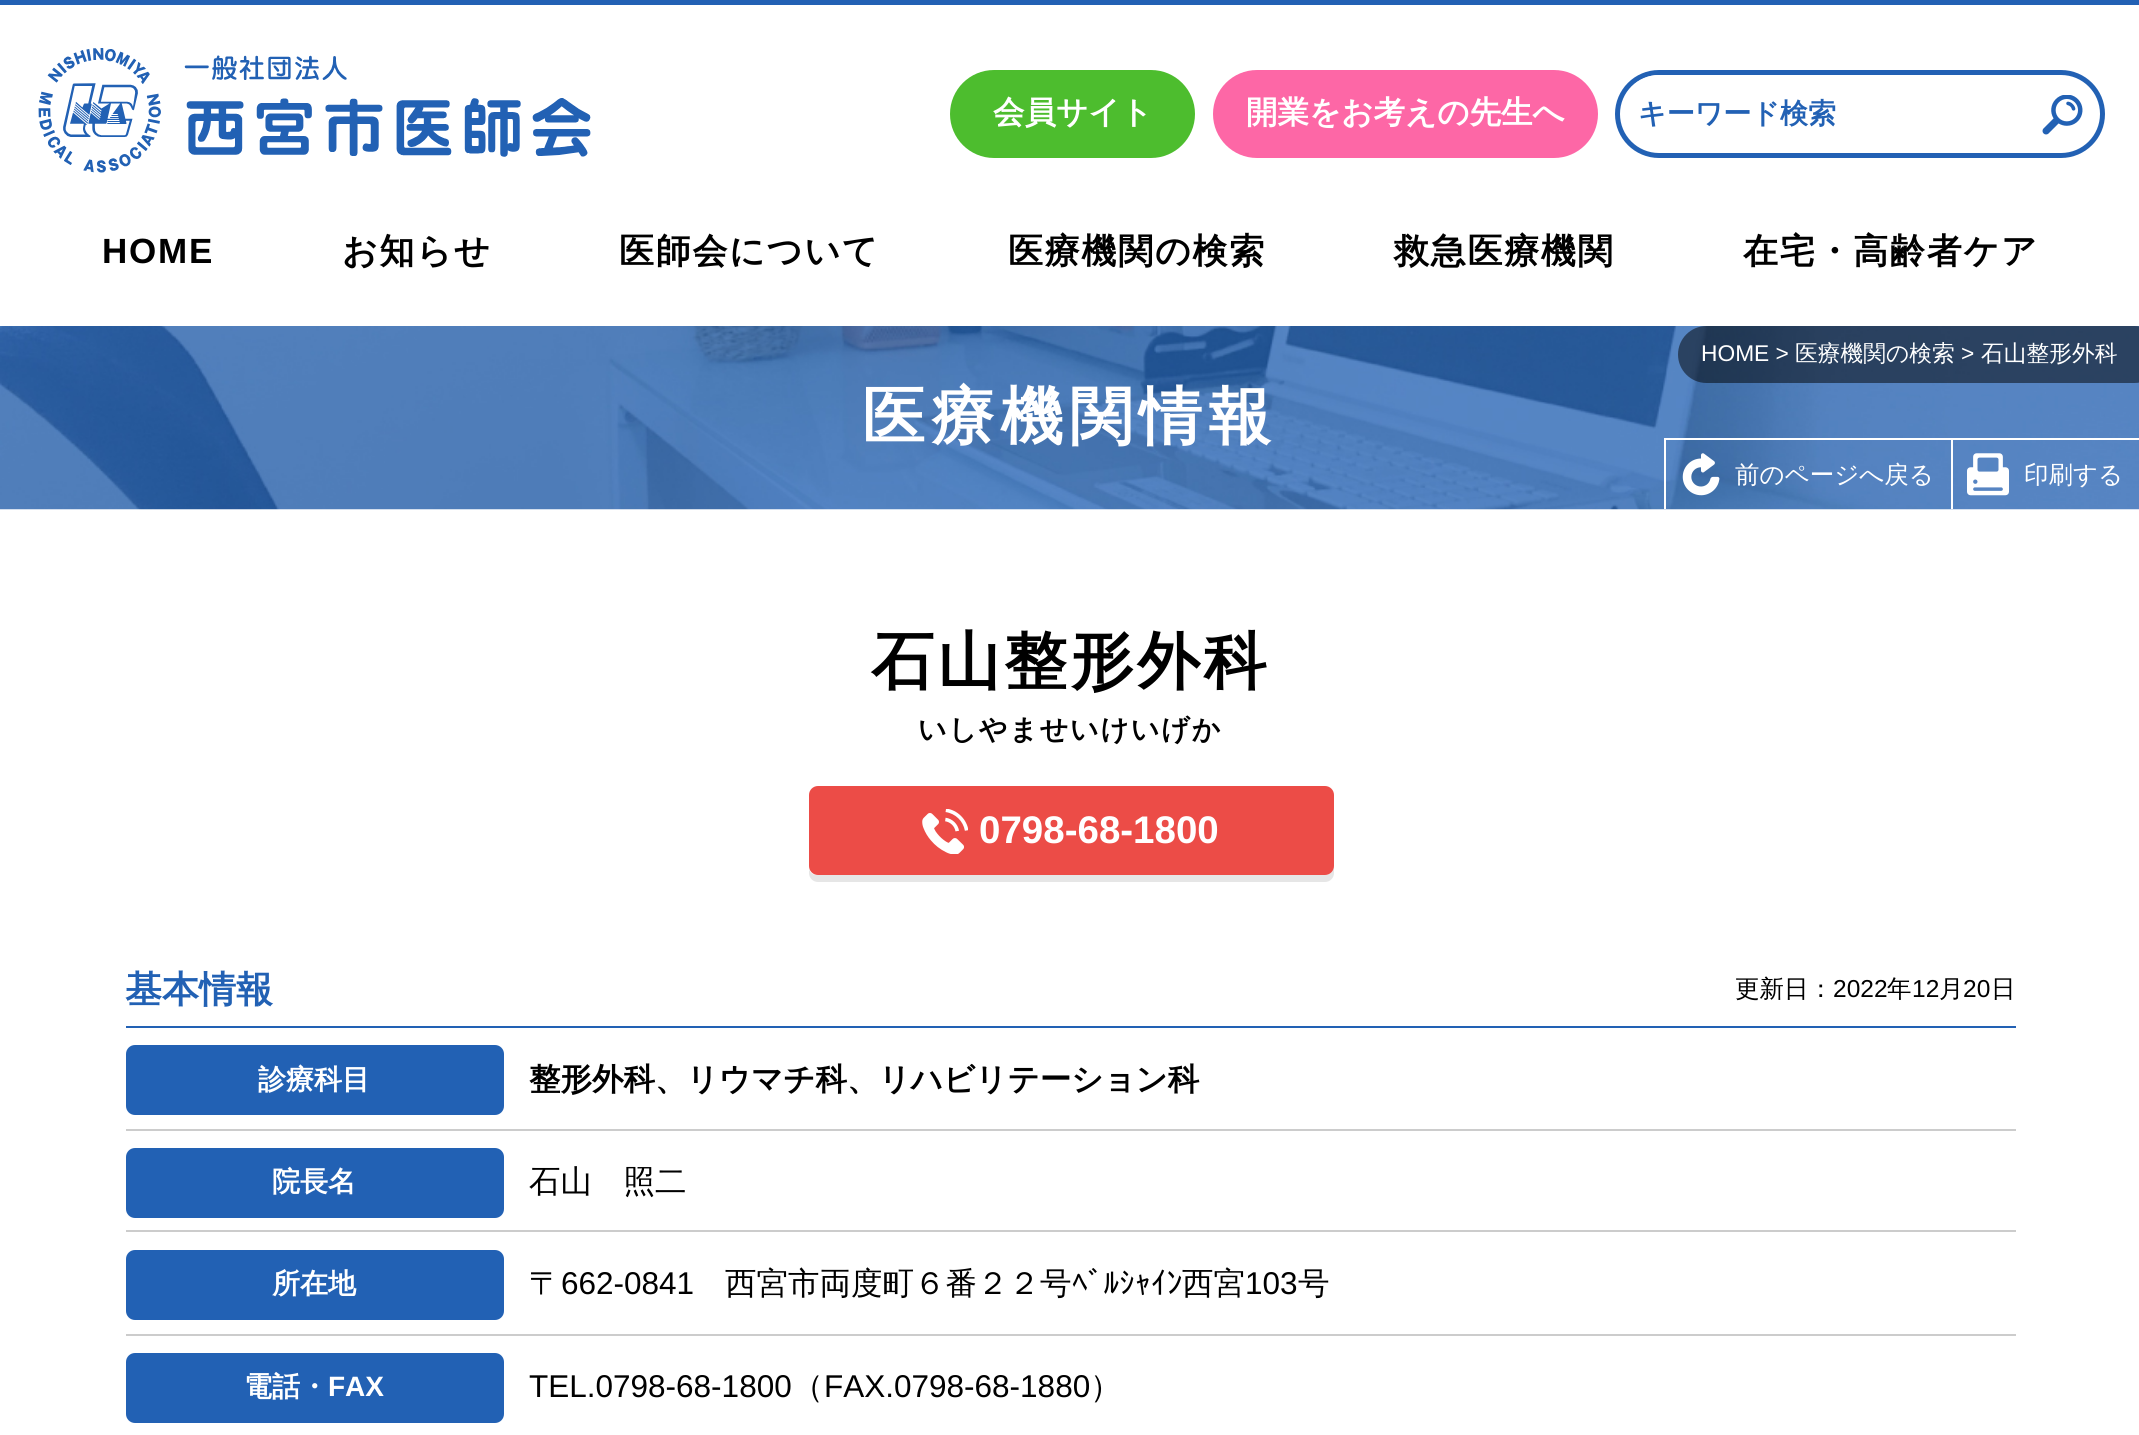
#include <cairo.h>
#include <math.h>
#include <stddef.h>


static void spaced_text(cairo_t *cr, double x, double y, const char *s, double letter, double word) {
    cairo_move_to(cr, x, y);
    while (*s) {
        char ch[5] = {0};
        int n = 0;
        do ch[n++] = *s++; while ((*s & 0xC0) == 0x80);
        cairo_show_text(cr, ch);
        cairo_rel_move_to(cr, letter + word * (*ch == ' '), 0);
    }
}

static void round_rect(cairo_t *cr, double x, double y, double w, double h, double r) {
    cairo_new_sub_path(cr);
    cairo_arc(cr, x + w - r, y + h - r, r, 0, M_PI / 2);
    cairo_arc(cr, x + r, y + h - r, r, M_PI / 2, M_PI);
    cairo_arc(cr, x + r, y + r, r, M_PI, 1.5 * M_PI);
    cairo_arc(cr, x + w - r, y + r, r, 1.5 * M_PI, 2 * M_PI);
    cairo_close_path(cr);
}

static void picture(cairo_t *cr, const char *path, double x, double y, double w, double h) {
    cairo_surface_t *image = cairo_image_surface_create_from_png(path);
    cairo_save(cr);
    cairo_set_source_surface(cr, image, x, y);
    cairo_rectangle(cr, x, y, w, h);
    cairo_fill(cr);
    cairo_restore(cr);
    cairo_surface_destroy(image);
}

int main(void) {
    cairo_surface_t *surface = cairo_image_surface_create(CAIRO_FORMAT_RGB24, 2139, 1435);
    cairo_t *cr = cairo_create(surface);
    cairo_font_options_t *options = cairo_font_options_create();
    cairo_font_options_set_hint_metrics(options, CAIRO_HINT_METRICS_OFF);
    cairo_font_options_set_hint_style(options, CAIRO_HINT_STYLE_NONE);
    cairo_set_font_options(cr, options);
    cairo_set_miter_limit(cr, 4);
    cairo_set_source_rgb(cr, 1, 1, 1);
    cairo_paint(cr);
    cairo_set_source_rgb(cr, 0.133, 0.38, 0.706);
    cairo_rectangle(cr, 0, 0, 2139, 5);
    cairo_fill(cr);
    picture(cr, "img1.png", 38, 48, 553, 125);
    cairo_set_source_rgb(cr, 0.992, 0.404, 0.651);
    round_rect(cr, 1213, 70, 385, 88, 44);
    cairo_fill(cr);
    cairo_select_font_face(cr, "WenQuanYi Zen Hei", CAIRO_FONT_SLANT_NORMAL, CAIRO_FONT_WEIGHT_BOLD);
    cairo_set_font_size(cr, 31.5);
    cairo_set_source_rgb(cr, 1, 1, 1);
    cairo_move_to(cr, 1246, 123);
    cairo_show_text(cr, "開業をお考えの先生へ");
    round_rect(cr, 1617.5, 72.5, 485, 83, 41.5);
    cairo_set_source_rgb(cr, 0.133, 0.38, 0.706);
    cairo_set_line_width(cr, 5);
    cairo_stroke(cr);
    cairo_set_source_rgb(cr, 1, 1, 1);
    cairo_new_path(cr);
    cairo_move_to(cr, 1659.5, 75);
    cairo_line_to(cr, 2023, 75);
    cairo_line_to(cr, 2023, 152);
    cairo_line_to(cr, 1659.5, 152);
    cairo_curve_to(cr, 1638, 152, 1621, 135, 1621, 113.5);
    cairo_curve_to(cr, 1621, 92, 1638, 75, 1659.5, 75);
    cairo_close_path(cr);
    cairo_fill(cr);
    cairo_set_font_size(cr, 28);
    cairo_set_source_rgb(cr, 0.133, 0.38, 0.706);
    cairo_move_to(cr, 1638, 123);
    cairo_show_text(cr, "キーワード検索");
    picture(cr, "img2.png", 2042, 95, 41, 40);
    cairo_select_font_face(cr, "Liberation Sans", CAIRO_FONT_SLANT_NORMAL, CAIRO_FONT_WEIGHT_BOLD);
    cairo_set_font_size(cr, 35);
    cairo_set_source_rgb(cr, 0, 0, 0);
    spaced_text(cr, 102, 263, "HOME", 1.75, 0);
    cairo_select_font_face(cr, "WenQuanYi Zen Hei", CAIRO_FONT_SLANT_NORMAL, CAIRO_FONT_WEIGHT_BOLD);
    spaced_text(cr, 342, 263, "お知らせ", 1.75, 0);
    spaced_text(cr, 619, 263, "医師会について", 1.75, 0);
    spaced_text(cr, 1008, 263, "医療機関の検索", 1.75, 0);
    spaced_text(cr, 1394, 263, "救急医療機関", 1.75, 0);
    spaced_text(cr, 1743, 263, "在宅・高齢者ケア", 1.75, 0);
    cairo_set_source_rgb(cr, 0.302, 0.741, 0.18);
    round_rect(cr, 950, 70, 245, 88, 44);
    cairo_fill(cr);
    cairo_set_font_size(cr, 31.5);
    cairo_set_source_rgb(cr, 1, 1, 1);
    cairo_move_to(cr, 993, 123);
    cairo_show_text(cr, "会員サイト");
    picture(cr, "img3.png", 0, 326, 2139, 184);
    cairo_set_source_rgba(cr, 0, 0, 0, 0.5);
    round_rect(cr, 1678, 326, 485, 57, 28.5);
    cairo_fill(cr);
    cairo_select_font_face(cr, "Liberation Sans", CAIRO_FONT_SLANT_NORMAL, CAIRO_FONT_WEIGHT_NORMAL);
    cairo_set_font_size(cr, 22.75);
    cairo_set_source_rgb(cr, 1, 1, 1);
    cairo_move_to(cr, 1701, 361);
    cairo_show_text(cr, "HOME >");
    cairo_select_font_face(cr, "WenQuanYi Zen Hei Medium", CAIRO_FONT_SLANT_NORMAL, CAIRO_FONT_WEIGHT_NORMAL);
    cairo_move_to(cr, 1795, 361);
    cairo_show_text(cr, "医療機関の検索");
    cairo_select_font_face(cr, "Liberation Sans", CAIRO_FONT_SLANT_NORMAL, CAIRO_FONT_WEIGHT_NORMAL);
    cairo_move_to(cr, 1961, 361);
    cairo_show_text(cr, ">");
    cairo_select_font_face(cr, "WenQuanYi Zen Hei Medium", CAIRO_FONT_SLANT_NORMAL, CAIRO_FONT_WEIGHT_NORMAL);
    cairo_move_to(cr, 1981, 361);
    cairo_show_text(cr, "石山整形外科");
    cairo_select_font_face(cr, "WenQuanYi Zen Hei", CAIRO_FONT_SLANT_NORMAL, CAIRO_FONT_WEIGHT_BOLD);
    cairo_set_font_size(cr, 63);
    spaced_text(cr, 862, 438, "医療機関情報", 6.25, 0);
    picture(cr, "img4.png", 1682, 453, 38, 43);
    cairo_rectangle(cr, 1664, 438, 475, 2);
    cairo_fill(cr);
    cairo_rectangle(cr, 1664, 438, 2, 71);
    cairo_fill(cr);
    cairo_select_font_face(cr, "WenQuanYi Zen Hei Medium", CAIRO_FONT_SLANT_NORMAL, CAIRO_FONT_WEIGHT_NORMAL);
    cairo_set_font_size(cr, 24.5);
    cairo_move_to(cr, 1735, 483);
    cairo_show_text(cr, "前のページへ戻る");
    picture(cr, "img5.png", 1967, 453, 42, 43);
    cairo_rectangle(cr, 1951, 438, 2, 71);
    cairo_fill(cr);
    cairo_move_to(cr, 2024, 483);
    cairo_show_text(cr, "印刷する");
    cairo_select_font_face(cr, "WenQuanYi Zen Hei", CAIRO_FONT_SLANT_NORMAL, CAIRO_FONT_WEIGHT_BOLD);
    cairo_set_font_size(cr, 63);
    cairo_set_source_rgb(cr, 0, 0, 0);
    spaced_text(cr, 871, 683, "石山整形外科", 3.5, 0);
    cairo_set_font_size(cr, 28);
    spaced_text(cr, 918, 739, "いしやませいけいげか", 1.75, 0);
    cairo_set_source_rgb(cr, 0.902, 0.902, 0.902);
    cairo_new_path(cr);
    cairo_move_to(cr, 809, 869);
    cairo_line_to(cr, 809, 873);
    cairo_curve_to(cr, 809, 878, 813, 882, 818, 882);
    cairo_line_to(cr, 1325, 882);
    cairo_curve_to(cr, 1330, 882, 1334, 878, 1334, 873);
    cairo_line_to(cr, 1334, 802);
    cairo_line_to(cr, 1334, 799);
    cairo_line_to(cr, 1334, 866);
    cairo_curve_to(cr, 1334, 871, 1330, 875, 1325, 875);
    cairo_line_to(cr, 817, 875);
    cairo_curve_to(cr, 813, 875, 810, 873, 809, 869);
    cairo_close_path(cr);
    cairo_fill(cr);
    cairo_set_source_rgb(cr, 0.925, 0.298, 0.278);
    round_rect(cr, 809, 786, 525, 89, 9);
    cairo_fill(cr);
    picture(cr, "img6.png", 922, 809, 46, 45);
    cairo_select_font_face(cr, "Liberation Sans", CAIRO_FONT_SLANT_NORMAL, CAIRO_FONT_WEIGHT_BOLD);
    cairo_set_font_size(cr, 38.5);
    cairo_set_source_rgb(cr, 1, 1, 1);
    cairo_move_to(cr, 979, 843);
    cairo_show_text(cr, "0798-68-1800");
    cairo_set_source_rgb(cr, 0.133, 0.38, 0.706);
    cairo_rectangle(cr, 126, 1026, 1890, 2);
    cairo_fill(cr);
    cairo_select_font_face(cr, "WenQuanYi Zen Hei", CAIRO_FONT_SLANT_NORMAL, CAIRO_FONT_WEIGHT_BOLD);
    cairo_set_font_size(cr, 37);
    cairo_move_to(cr, 125, 1002);
    cairo_show_text(cr, "基本情報");
    cairo_select_font_face(cr, "WenQuanYi Zen Hei Medium", CAIRO_FONT_SLANT_NORMAL, CAIRO_FONT_WEIGHT_NORMAL);
    cairo_set_font_size(cr, 24.5);
    cairo_set_source_rgb(cr, 0, 0, 0);
    cairo_move_to(cr, 1735, 997);
    cairo_show_text(cr, "更新日：");
    cairo_select_font_face(cr, "Liberation Sans", CAIRO_FONT_SLANT_NORMAL, CAIRO_FONT_WEIGHT_NORMAL);
    cairo_move_to(cr, 1833, 997);
    cairo_show_text(cr, "2022");
    cairo_select_font_face(cr, "WenQuanYi Zen Hei Medium", CAIRO_FONT_SLANT_NORMAL, CAIRO_FONT_WEIGHT_NORMAL);
    cairo_move_to(cr, 1887, 997);
    cairo_show_text(cr, "年");
    cairo_select_font_face(cr, "Liberation Sans", CAIRO_FONT_SLANT_NORMAL, CAIRO_FONT_WEIGHT_NORMAL);
    cairo_move_to(cr, 1912, 997);
    cairo_show_text(cr, "12");
    cairo_select_font_face(cr, "WenQuanYi Zen Hei Medium", CAIRO_FONT_SLANT_NORMAL, CAIRO_FONT_WEIGHT_NORMAL);
    cairo_move_to(cr, 1939, 997);
    cairo_show_text(cr, "月");
    cairo_select_font_face(cr, "Liberation Sans", CAIRO_FONT_SLANT_NORMAL, CAIRO_FONT_WEIGHT_NORMAL);
    cairo_move_to(cr, 1963, 997);
    cairo_show_text(cr, "20");
    cairo_select_font_face(cr, "WenQuanYi Zen Hei Medium", CAIRO_FONT_SLANT_NORMAL, CAIRO_FONT_WEIGHT_NORMAL);
    cairo_move_to(cr, 1991, 997);
    cairo_show_text(cr, "日");
    cairo_set_source_rgb(cr, 0.133, 0.38, 0.706);
    round_rect(cr, 126, 1045, 378, 70, 9);
    cairo_fill(cr);
    cairo_select_font_face(cr, "WenQuanYi Zen Hei", CAIRO_FONT_SLANT_NORMAL, CAIRO_FONT_WEIGHT_BOLD);
    cairo_set_font_size(cr, 28);
    cairo_set_source_rgb(cr, 1, 1, 1);
    cairo_move_to(cr, 258, 1089);
    cairo_show_text(cr, "診療科目");
    cairo_set_source_rgb(cr, 0.8, 0.8, 0.8);
    cairo_rectangle(cr, 126, 1129, 1890, 2);
    cairo_fill(cr);
    cairo_set_font_size(cr, 31.5);
    cairo_set_source_rgb(cr, 0, 0, 0);
    cairo_move_to(cr, 529, 1090);
    cairo_show_text(cr, "整形外科、リウマチ科、リハビリテーション科");
    cairo_set_source_rgb(cr, 0.133, 0.38, 0.706);
    round_rect(cr, 126, 1148, 378, 70, 9);
    cairo_fill(cr);
    cairo_set_font_size(cr, 28);
    cairo_set_source_rgb(cr, 1, 1, 1);
    cairo_move_to(cr, 272, 1191);
    cairo_show_text(cr, "院長名");
    cairo_set_source_rgb(cr, 0.8, 0.8, 0.8);
    cairo_rectangle(cr, 126, 1230, 1890, 2);
    cairo_fill(cr);
    cairo_select_font_face(cr, "WenQuanYi Zen Hei Medium", CAIRO_FONT_SLANT_NORMAL, CAIRO_FONT_WEIGHT_NORMAL);
    cairo_set_font_size(cr, 31.5);
    cairo_set_source_rgb(cr, 0, 0, 0);
    cairo_move_to(cr, 529, 1192);
    cairo_show_text(cr, "石山　照二");
    cairo_set_source_rgb(cr, 0.133, 0.38, 0.706);
    round_rect(cr, 126, 1250, 378, 70, 9);
    cairo_fill(cr);
    cairo_select_font_face(cr, "WenQuanYi Zen Hei", CAIRO_FONT_SLANT_NORMAL, CAIRO_FONT_WEIGHT_BOLD);
    cairo_set_font_size(cr, 28);
    cairo_set_source_rgb(cr, 1, 1, 1);
    cairo_move_to(cr, 272, 1293);
    cairo_show_text(cr, "所在地");
    cairo_set_source_rgb(cr, 0.8, 0.8, 0.8);
    cairo_rectangle(cr, 126, 1334, 1890, 2);
    cairo_fill(cr);
    cairo_select_font_face(cr, "WenQuanYi Zen Hei Medium", CAIRO_FONT_SLANT_NORMAL, CAIRO_FONT_WEIGHT_NORMAL);
    cairo_set_font_size(cr, 31.5);
    cairo_set_source_rgb(cr, 0, 0, 0);
    cairo_move_to(cr, 529, 1294);
    cairo_show_text(cr, "〒");
    cairo_select_font_face(cr, "Liberation Sans", CAIRO_FONT_SLANT_NORMAL, CAIRO_FONT_WEIGHT_NORMAL);
    cairo_move_to(cr, 561, 1294);
    cairo_show_text(cr, "662-0841");
    cairo_select_font_face(cr, "WenQuanYi Zen Hei Medium", CAIRO_FONT_SLANT_NORMAL, CAIRO_FONT_WEIGHT_NORMAL);
    cairo_move_to(cr, 725, 1294);
    cairo_show_text(cr, "西宮市両度町６番２２号");
    cairo_select_font_face(cr, "IPAPGothic", CAIRO_FONT_SLANT_NORMAL, CAIRO_FONT_WEIGHT_NORMAL);
    cairo_move_to(cr, 1072, 1294);
    cairo_show_text(cr, "ﾍﾞﾙｼｬｲﾝ");
    cairo_select_font_face(cr, "WenQuanYi Zen Hei Medium", CAIRO_FONT_SLANT_NORMAL, CAIRO_FONT_WEIGHT_NORMAL);
    cairo_move_to(cr, 1182, 1294);
    cairo_show_text(cr, "西宮");
    cairo_select_font_face(cr, "Liberation Sans", CAIRO_FONT_SLANT_NORMAL, CAIRO_FONT_WEIGHT_NORMAL);
    cairo_move_to(cr, 1245, 1294);
    cairo_show_text(cr, "103");
    cairo_select_font_face(cr, "WenQuanYi Zen Hei Medium", CAIRO_FONT_SLANT_NORMAL, CAIRO_FONT_WEIGHT_NORMAL);
    cairo_move_to(cr, 1298, 1294);
    cairo_show_text(cr, "号");
    cairo_set_source_rgb(cr, 0.133, 0.38, 0.706);
    round_rect(cr, 126, 1353, 378, 70, 9);
    cairo_fill(cr);
    cairo_select_font_face(cr, "WenQuanYi Zen Hei", CAIRO_FONT_SLANT_NORMAL, CAIRO_FONT_WEIGHT_BOLD);
    cairo_set_font_size(cr, 28);
    cairo_set_source_rgb(cr, 1, 1, 1);
    cairo_move_to(cr, 244, 1396);
    cairo_show_text(cr, "電話・");
    cairo_select_font_face(cr, "Liberation Sans", CAIRO_FONT_SLANT_NORMAL, CAIRO_FONT_WEIGHT_BOLD);
    cairo_move_to(cr, 328, 1396);
    cairo_show_text(cr, "FAX");
    cairo_select_font_face(cr, "Liberation Sans", CAIRO_FONT_SLANT_NORMAL, CAIRO_FONT_WEIGHT_NORMAL);
    cairo_set_font_size(cr, 31.5);
    cairo_set_source_rgb(cr, 0, 0, 0);
    cairo_move_to(cr, 529, 1397);
    cairo_show_text(cr, "TEL.0798-68-1800");
    cairo_select_font_face(cr, "WenQuanYi Zen Hei Medium", CAIRO_FONT_SLANT_NORMAL, CAIRO_FONT_WEIGHT_NORMAL);
    cairo_move_to(cr, 792, 1397);
    cairo_show_text(cr, "（");
    cairo_select_font_face(cr, "Liberation Sans", CAIRO_FONT_SLANT_NORMAL, CAIRO_FONT_WEIGHT_NORMAL);
    cairo_move_to(cr, 824, 1397);
    cairo_show_text(cr, "FAX.0798-68-1880");
    cairo_select_font_face(cr, "WenQuanYi Zen Hei Medium", CAIRO_FONT_SLANT_NORMAL, CAIRO_FONT_WEIGHT_NORMAL);
    cairo_move_to(cr, 1090, 1397);
    cairo_show_text(cr, "）");
    cairo_surface_write_to_png(surface, "page.png");
    cairo_font_options_destroy(options);
    cairo_destroy(cr);
    cairo_surface_destroy(surface);
    return 0;
}
